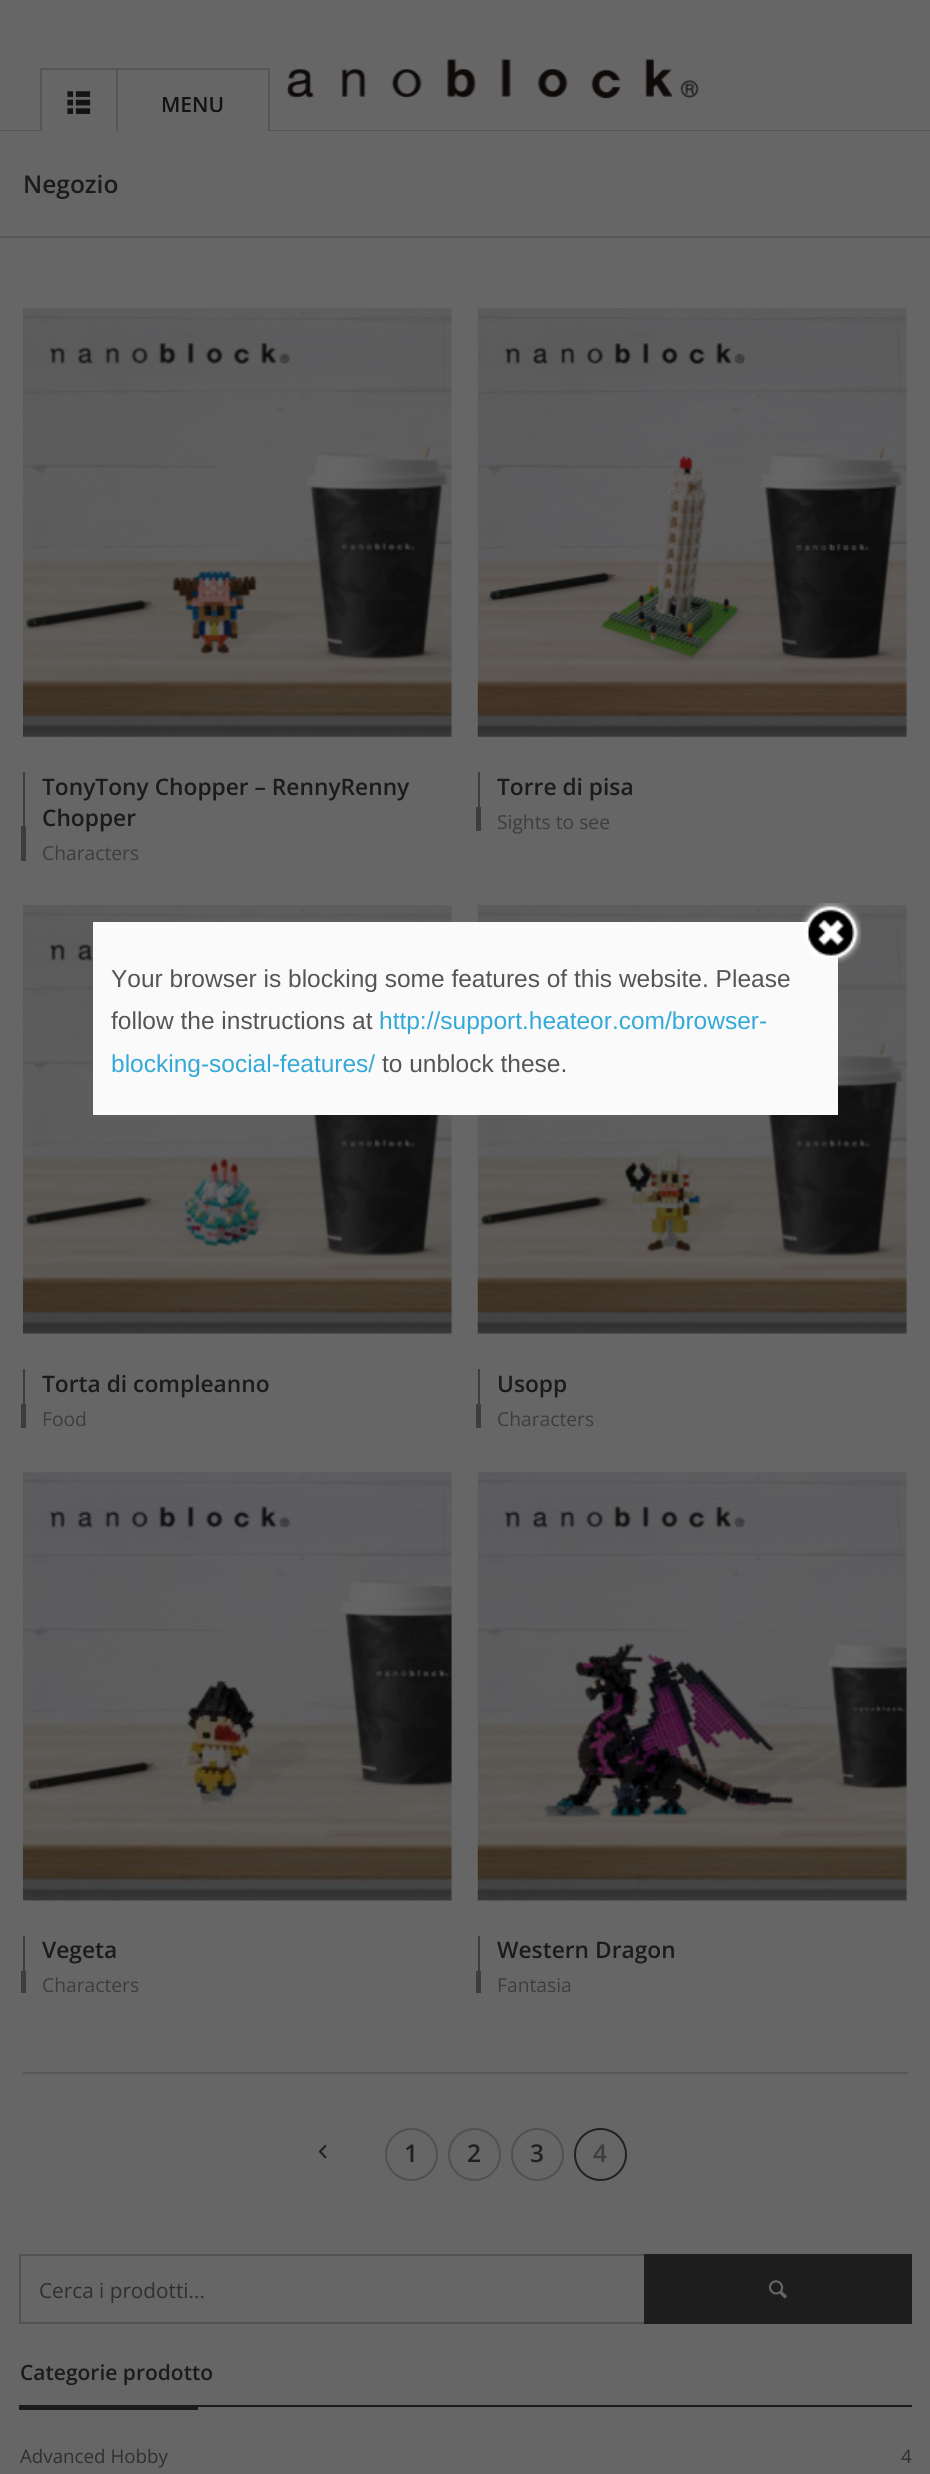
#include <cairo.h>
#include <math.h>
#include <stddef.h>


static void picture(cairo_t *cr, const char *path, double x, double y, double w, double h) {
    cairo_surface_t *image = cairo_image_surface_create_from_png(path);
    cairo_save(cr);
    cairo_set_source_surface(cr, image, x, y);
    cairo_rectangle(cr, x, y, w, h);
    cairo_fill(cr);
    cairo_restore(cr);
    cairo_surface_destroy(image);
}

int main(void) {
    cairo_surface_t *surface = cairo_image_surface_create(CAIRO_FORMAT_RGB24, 930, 2474);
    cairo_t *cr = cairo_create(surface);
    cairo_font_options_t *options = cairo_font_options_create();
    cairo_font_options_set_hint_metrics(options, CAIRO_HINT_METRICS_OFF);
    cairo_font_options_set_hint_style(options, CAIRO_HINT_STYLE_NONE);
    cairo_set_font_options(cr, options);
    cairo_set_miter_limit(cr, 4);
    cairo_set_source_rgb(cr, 0.4, 0.4, 0.4);
    cairo_paint(cr);
    picture(cr, "img1.png", 286, 59, 413, 40);
    cairo_set_source_rgb(cr, 0.337, 0.337, 0.337);
    cairo_rectangle(cr, 0, 130, 930, 1);
    cairo_fill(cr);
    cairo_set_source_rgb(cr, 0.4, 0.4, 0.4);
    cairo_rectangle(cr, 42, 130, 226, 1);
    cairo_fill(cr);
    cairo_save(cr);
    cairo_rectangle(cr, 0, 35, 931, 96);
    cairo_clip(cr);
    cairo_rectangle(cr, 41, 69, 228, 68);
    cairo_set_source_rgb(cr, 0.337, 0.337, 0.337);
    cairo_stroke(cr);
    cairo_restore(cr);
    cairo_set_source_rgb(cr, 0.337, 0.337, 0.337);
    cairo_rectangle(cr, 116, 70, 2, 61);
    cairo_fill(cr);
    picture(cr, "img2.png", 67, 91, 24, 23);
    cairo_select_font_face(cr, "Open Sans SemiBold", CAIRO_FONT_SLANT_NORMAL, CAIRO_FONT_WEIGHT_NORMAL);
    cairo_set_font_size(cr, 21);
    cairo_set_source_rgb(cr, 0.078, 0.078, 0.078);
    cairo_move_to(cr, 161, 112);
    cairo_show_text(cr, "MENU");
    cairo_set_source_rgb(cr, 0.337, 0.337, 0.337);
    cairo_rectangle(cr, 0, 236, 930, 2);
    cairo_fill(cr);
    cairo_set_font_size(cr, 24.5);
    cairo_set_source_rgb(cr, 0.106, 0.106, 0.106);
    cairo_move_to(cr, 23, 193);
    cairo_show_text(cr, "Negozio");
    picture(cr, "img3.png", 23, 308, 429, 429);
    cairo_set_source_rgb(cr, 0.239, 0.239, 0.239);
    cairo_rectangle(cr, 23, 772, 2, 54);
    cairo_fill(cr);
    cairo_set_font_size(cr, 22.75);
    cairo_set_source_rgb(cr, 0.106, 0.106, 0.106);
    cairo_move_to(cr, 42, 795);
    cairo_show_text(cr, "TonyTony Chopper – RennyRenny");
    cairo_move_to(cr, 42, 826);
    cairo_show_text(cr, "Chopper");
    cairo_set_source_rgb(cr, 0.239, 0.239, 0.239);
    cairo_rectangle(cr, 21, 826, 5, 35);
    cairo_fill(cr);
    cairo_select_font_face(cr, "Open Sans", CAIRO_FONT_SLANT_NORMAL, CAIRO_FONT_WEIGHT_NORMAL);
    cairo_set_font_size(cr, 19.25);
    cairo_move_to(cr, 42, 860);
    cairo_show_text(cr, "Characters");
    picture(cr, "img4.png", 477, 308, 430, 429);
    cairo_rectangle(cr, 478, 772, 2, 35);
    cairo_fill(cr);
    cairo_select_font_face(cr, "Open Sans SemiBold", CAIRO_FONT_SLANT_NORMAL, CAIRO_FONT_WEIGHT_NORMAL);
    cairo_set_font_size(cr, 22.75);
    cairo_set_source_rgb(cr, 0.106, 0.106, 0.106);
    cairo_move_to(cr, 497, 795);
    cairo_show_text(cr, "Torre di pisa");
    cairo_set_source_rgb(cr, 0.239, 0.239, 0.239);
    cairo_rectangle(cr, 476, 807, 5, 24);
    cairo_fill(cr);
    cairo_select_font_face(cr, "Open Sans", CAIRO_FONT_SLANT_NORMAL, CAIRO_FONT_WEIGHT_NORMAL);
    cairo_set_font_size(cr, 19.25);
    cairo_move_to(cr, 497, 829);
    cairo_show_text(cr, "Sights to see");
    picture(cr, "img5.png", 23, 905, 429, 429);
    cairo_rectangle(cr, 23, 1369, 2, 35);
    cairo_fill(cr);
    cairo_select_font_face(cr, "Open Sans SemiBold", CAIRO_FONT_SLANT_NORMAL, CAIRO_FONT_WEIGHT_NORMAL);
    cairo_set_font_size(cr, 22.75);
    cairo_set_source_rgb(cr, 0.106, 0.106, 0.106);
    cairo_move_to(cr, 42, 1392);
    cairo_show_text(cr, "Torta di compleanno");
    cairo_set_source_rgb(cr, 0.239, 0.239, 0.239);
    cairo_rectangle(cr, 21, 1404, 5, 24);
    cairo_fill(cr);
    cairo_select_font_face(cr, "Open Sans", CAIRO_FONT_SLANT_NORMAL, CAIRO_FONT_WEIGHT_NORMAL);
    cairo_set_font_size(cr, 19.25);
    cairo_move_to(cr, 42, 1426);
    cairo_show_text(cr, "Food");
    picture(cr, "img6.png", 477, 905, 430, 429);
    cairo_rectangle(cr, 478, 1369, 2, 35);
    cairo_fill(cr);
    cairo_select_font_face(cr, "Open Sans SemiBold", CAIRO_FONT_SLANT_NORMAL, CAIRO_FONT_WEIGHT_NORMAL);
    cairo_set_font_size(cr, 22.75);
    cairo_set_source_rgb(cr, 0.106, 0.106, 0.106);
    cairo_move_to(cr, 497, 1392);
    cairo_show_text(cr, "Usopp");
    cairo_set_source_rgb(cr, 0.239, 0.239, 0.239);
    cairo_rectangle(cr, 476, 1404, 5, 24);
    cairo_fill(cr);
    cairo_select_font_face(cr, "Open Sans", CAIRO_FONT_SLANT_NORMAL, CAIRO_FONT_WEIGHT_NORMAL);
    cairo_set_font_size(cr, 19.25);
    cairo_move_to(cr, 497, 1426);
    cairo_show_text(cr, "Characters");
    picture(cr, "img7.png", 23, 1471, 429, 430);
    cairo_rectangle(cr, 23, 1936, 2, 35);
    cairo_fill(cr);
    cairo_select_font_face(cr, "Open Sans SemiBold", CAIRO_FONT_SLANT_NORMAL, CAIRO_FONT_WEIGHT_NORMAL);
    cairo_set_font_size(cr, 22.75);
    cairo_set_source_rgb(cr, 0.106, 0.106, 0.106);
    cairo_move_to(cr, 42, 1958);
    cairo_show_text(cr, "Vegeta");
    cairo_set_source_rgb(cr, 0.239, 0.239, 0.239);
    cairo_rectangle(cr, 21, 1971, 5, 22);
    cairo_fill(cr);
    cairo_select_font_face(cr, "Open Sans", CAIRO_FONT_SLANT_NORMAL, CAIRO_FONT_WEIGHT_NORMAL);
    cairo_set_font_size(cr, 19.25);
    cairo_move_to(cr, 42, 1992);
    cairo_show_text(cr, "Characters");
    picture(cr, "img8.png", 477, 1471, 430, 430);
    cairo_rectangle(cr, 478, 1936, 2, 35);
    cairo_fill(cr);
    cairo_select_font_face(cr, "Open Sans SemiBold", CAIRO_FONT_SLANT_NORMAL, CAIRO_FONT_WEIGHT_NORMAL);
    cairo_set_font_size(cr, 22.75);
    cairo_set_source_rgb(cr, 0.106, 0.106, 0.106);
    cairo_move_to(cr, 497, 1958);
    cairo_show_text(cr, "Western Dragon");
    cairo_set_source_rgb(cr, 0.239, 0.239, 0.239);
    cairo_rectangle(cr, 476, 1971, 5, 22);
    cairo_fill(cr);
    cairo_select_font_face(cr, "Open Sans", CAIRO_FONT_SLANT_NORMAL, CAIRO_FONT_WEIGHT_NORMAL);
    cairo_set_font_size(cr, 19.25);
    cairo_move_to(cr, 497, 1992);
    cairo_show_text(cr, "Fantasia");
    cairo_set_source_rgb(cr, 0.337, 0.337, 0.337);
    cairo_rectangle(cr, 23, 2072, 885, 2);
    cairo_fill(cr);
    picture(cr, "img9.png", 318, 2144, 9, 15);
    cairo_arc(cr, 411.5, 2154.5, 25.5, 0, 2 * M_PI);
    cairo_set_source_rgb(cr, 0.314, 0.314, 0.314);
    cairo_stroke(cr);
    cairo_select_font_face(cr, "Open Sans SemiBold", CAIRO_FONT_SLANT_NORMAL, CAIRO_FONT_WEIGHT_NORMAL);
    cairo_set_font_size(cr, 24.5);
    cairo_set_source_rgb(cr, 0.129, 0.129, 0.129);
    cairo_move_to(cr, 404, 2162);
    cairo_show_text(cr, "1");
    cairo_new_path(cr);
    cairo_arc(cr, 474.5, 2154.5, 25.5, 0, 2 * M_PI);
    cairo_set_source_rgb(cr, 0.314, 0.314, 0.314);
    cairo_stroke(cr);
    cairo_set_source_rgb(cr, 0.129, 0.129, 0.129);
    cairo_move_to(cr, 467, 2162);
    cairo_show_text(cr, "2");
    cairo_new_path(cr);
    cairo_arc(cr, 537.5, 2154.5, 25.5, 0, 2 * M_PI);
    cairo_set_source_rgb(cr, 0.314, 0.314, 0.314);
    cairo_stroke(cr);
    cairo_set_source_rgb(cr, 0.129, 0.129, 0.129);
    cairo_move_to(cr, 530, 2162);
    cairo_show_text(cr, "3");
    cairo_new_path(cr);
    cairo_arc(cr, 600.5, 2154.5, 25.5, 0, 2 * M_PI);
    cairo_stroke(cr);
    cairo_set_source_rgb(cr, 0.239, 0.239, 0.239);
    cairo_move_to(cr, 593, 2162);
    cairo_show_text(cr, "4");
    cairo_set_source_rgb(cr, 0.322, 0.322, 0.322);
    cairo_rectangle(cr, 19, 2254, 625, 2);
    cairo_fill(cr);
    cairo_rectangle(cr, 19, 2322, 625, 2);
    cairo_fill(cr);
    cairo_rectangle(cr, 19, 2254, 2, 70);
    cairo_fill(cr);
    cairo_select_font_face(cr, "Open Sans", CAIRO_FONT_SLANT_NORMAL, CAIRO_FONT_WEIGHT_NORMAL);
    cairo_set_font_size(cr, 20.75);
    cairo_set_source_rgb(cr, 0.184, 0.184, 0.184);
    cairo_move_to(cr, 39, 2298);
    cairo_show_text(cr, "Cerca i prodotti...");
    cairo_set_source_rgb(cr, 0.114, 0.114, 0.114);
    cairo_rectangle(cr, 644, 2254, 268, 70);
    cairo_fill(cr);
    picture(cr, "img10.png", 768, 2280, 19, 19);
    cairo_set_source_rgb(cr, 0.106, 0.106, 0.106);
    cairo_rectangle(cr, 198, 2405, 714, 2);
    cairo_fill(cr);
    cairo_select_font_face(cr, "Open Sans SemiBold", CAIRO_FONT_SLANT_NORMAL, CAIRO_FONT_WEIGHT_NORMAL);
    cairo_set_font_size(cr, 21);
    cairo_move_to(cr, 20, 2380);
    cairo_show_text(cr, "Categorie prodotto");
    cairo_rectangle(cr, 19, 2405, 179, 5);
    cairo_fill(cr);
    cairo_select_font_face(cr, "Open Sans", CAIRO_FONT_SLANT_NORMAL, CAIRO_FONT_WEIGHT_NORMAL);
    cairo_set_font_size(cr, 18.75);
    cairo_set_source_rgb(cr, 0.184, 0.184, 0.184);
    cairo_move_to(cr, 20, 2463);
    cairo_show_text(cr, "Advanced Hobby");
    cairo_move_to(cr, 901, 2463);
    cairo_show_text(cr, "4");
    cairo_set_source_rgb(cr, 0.98, 0.98, 0.98);
    cairo_rectangle(cr, 93, 922, 745, 193);
    cairo_fill(cr);
    picture(cr, "img11.png", 800, 903, 61, 60);
    cairo_select_font_face(cr, "Liberation Sans", CAIRO_FONT_SLANT_NORMAL, CAIRO_FONT_WEIGHT_NORMAL);
    cairo_set_font_size(cr, 24.5);
    cairo_set_source_rgb(cr, 0.333, 0.333, 0.333);
    cairo_move_to(cr, 111, 987);
    cairo_show_text(cr, "Your browser is blocking some features of this website. Please");
    cairo_move_to(cr, 111, 1029);
    cairo_show_text(cr, "follow the instructions at");
    cairo_set_source_rgb(cr, 0.2, 0.663, 0.847);
    cairo_move_to(cr, 379, 1029);
    cairo_show_text(cr, "http://support.heateor.com/browser-");
    cairo_move_to(cr, 111, 1072);
    cairo_show_text(cr, "blocking-social-features/");
    cairo_set_source_rgb(cr, 0.333, 0.333, 0.333);
    cairo_move_to(cr, 382, 1072);
    cairo_show_text(cr, "to unblock these.");
    cairo_surface_write_to_png(surface, "page.png");
    cairo_font_options_destroy(options);
    cairo_destroy(cr);
    cairo_surface_destroy(surface);
    return 0;
}
